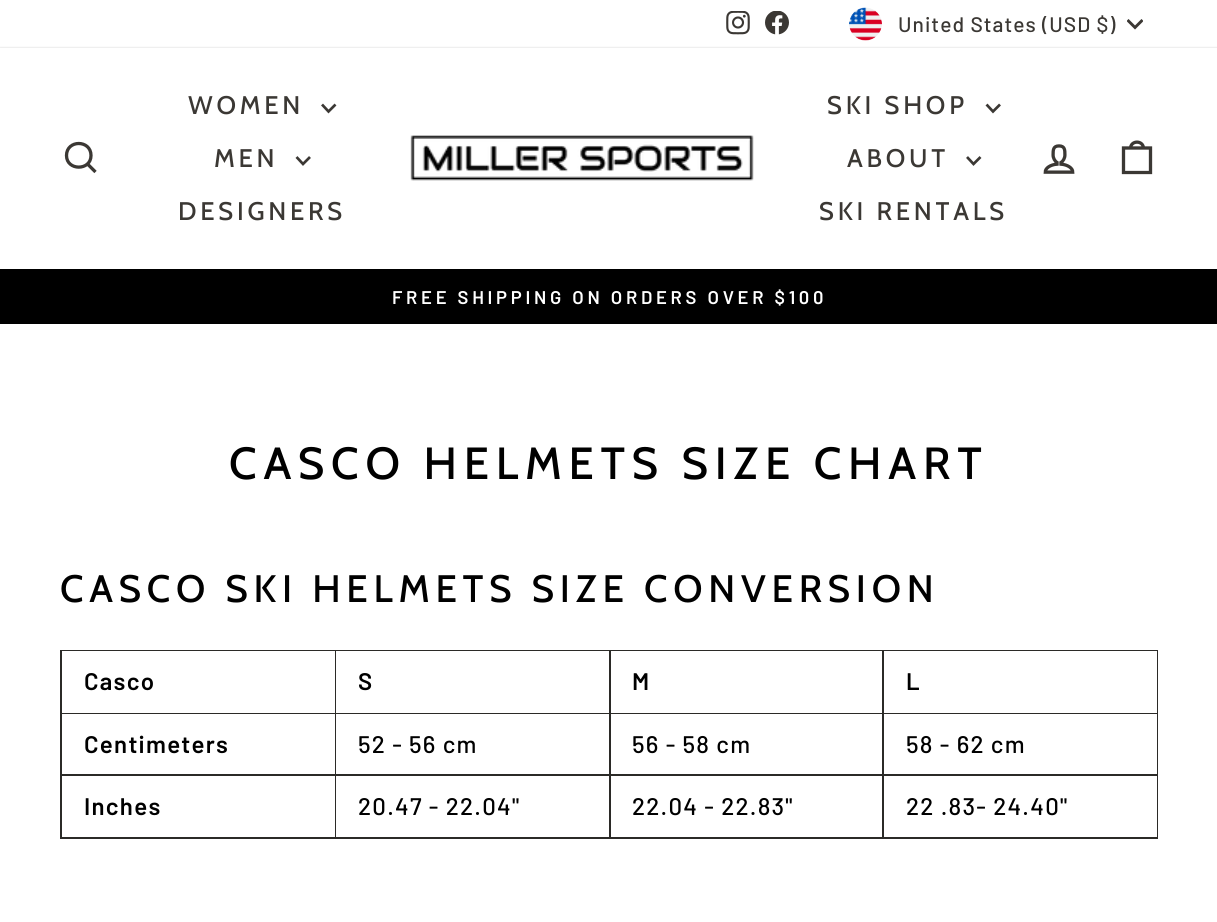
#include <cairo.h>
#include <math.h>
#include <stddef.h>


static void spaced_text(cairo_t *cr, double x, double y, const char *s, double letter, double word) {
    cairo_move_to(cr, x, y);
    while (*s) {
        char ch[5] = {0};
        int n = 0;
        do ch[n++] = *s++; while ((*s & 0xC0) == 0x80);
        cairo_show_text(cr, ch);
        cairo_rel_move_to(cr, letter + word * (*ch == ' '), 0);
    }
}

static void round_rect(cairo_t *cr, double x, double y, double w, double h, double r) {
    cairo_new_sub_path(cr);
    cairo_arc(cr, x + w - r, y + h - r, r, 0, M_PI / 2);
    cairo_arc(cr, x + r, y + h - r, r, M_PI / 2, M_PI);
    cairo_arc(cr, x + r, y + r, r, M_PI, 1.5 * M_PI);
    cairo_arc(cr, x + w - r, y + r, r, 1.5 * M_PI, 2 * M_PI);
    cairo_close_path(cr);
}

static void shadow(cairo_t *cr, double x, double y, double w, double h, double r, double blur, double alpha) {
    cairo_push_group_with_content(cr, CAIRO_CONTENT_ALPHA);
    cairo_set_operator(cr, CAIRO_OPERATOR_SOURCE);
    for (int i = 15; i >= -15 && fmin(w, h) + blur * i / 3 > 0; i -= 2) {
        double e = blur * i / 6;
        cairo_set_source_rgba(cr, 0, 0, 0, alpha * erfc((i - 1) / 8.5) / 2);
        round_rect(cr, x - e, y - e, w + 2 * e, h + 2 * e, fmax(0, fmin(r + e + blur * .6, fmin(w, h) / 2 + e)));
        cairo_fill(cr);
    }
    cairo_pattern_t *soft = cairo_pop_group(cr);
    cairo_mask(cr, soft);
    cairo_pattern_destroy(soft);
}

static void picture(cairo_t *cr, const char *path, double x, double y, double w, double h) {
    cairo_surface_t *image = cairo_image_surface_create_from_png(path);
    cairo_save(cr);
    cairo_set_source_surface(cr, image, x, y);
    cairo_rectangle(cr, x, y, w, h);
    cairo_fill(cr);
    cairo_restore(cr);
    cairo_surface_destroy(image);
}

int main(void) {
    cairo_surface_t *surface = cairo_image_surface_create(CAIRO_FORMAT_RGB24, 1217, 922);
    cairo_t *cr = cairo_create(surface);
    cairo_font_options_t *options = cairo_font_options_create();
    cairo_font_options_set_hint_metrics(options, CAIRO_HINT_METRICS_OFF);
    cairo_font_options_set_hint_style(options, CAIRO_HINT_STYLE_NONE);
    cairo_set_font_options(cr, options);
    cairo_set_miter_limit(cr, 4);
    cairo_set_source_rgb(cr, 1, 1, 1);
    cairo_paint(cr);
    picture(cr, "img1.png", 726, 11, 24, 24);
    picture(cr, "img2.png", 765, 11, 24, 24);
    picture(cr, "img3.png", 849, 7, 33, 34);
    cairo_select_font_face(cr, "Barlow Medium", CAIRO_FONT_SLANT_NORMAL, CAIRO_FONT_WEIGHT_NORMAL);
    cairo_set_font_size(cr, 21);
    cairo_set_source_rgb(cr, 0.231, 0.22, 0.204);
    spaced_text(cr, 898, 32, "United States (USD $)", 1.05, 0);
    cairo_save(cr);
    cairo_rectangle(cr, 1127, 17, 16, 16);
    cairo_clip(cr);
    cairo_new_path(cr);
    cairo_move_to(cr, 1127.5, 20);
    cairo_line_to(cr, 1135, 27.5);
    cairo_line_to(cr, 1142.5, 20);
    cairo_set_line_width(cr, 2.9);
    cairo_stroke(cr);
    cairo_restore(cr);
    cairo_set_source_rgb(cr, 0, 0, 0);
    cairo_rectangle(cr, 0, 269, 1217, 55);
    cairo_fill(cr);
    cairo_set_source_rgb(cr, 0, 0, 0);
    shadow(cr, 0, 48, 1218, 221, 0, 1, 0.2);
    cairo_set_source_rgb(cr, 1, 1, 1);
    cairo_rectangle(cr, 0, 48, 1217, 221);
    cairo_fill(cr);
    cairo_new_path(cr);
    cairo_move_to(cr, 91, 155.5);
    cairo_curve_to(cr, 91, 171, 66.5, 171, 66.5, 155.5);
    cairo_curve_to(cr, 66.5, 139.5, 91, 139.5, 91, 155.5);
    cairo_close_path(cr);
    cairo_move_to(cr, 95.5, 172);
    cairo_line_to(cr, 87.5, 164);
    cairo_set_source_rgb(cr, 0.231, 0.22, 0.204);
    cairo_set_line_width(cr, 3.3);
    cairo_stroke(cr);
    cairo_select_font_face(cr, "Cabin Medium", CAIRO_FONT_SLANT_NORMAL, CAIRO_FONT_WEIGHT_NORMAL);
    cairo_set_font_size(cr, 25.5);
    spaced_text(cr, 188, 114, "WOMEN", 3.75, 0);
    cairo_new_path(cr);
    cairo_move_to(cr, 322, 104.5);
    cairo_line_to(cr, 328.5, 111.5);
    cairo_line_to(cr, 335.5, 104.5);
    cairo_set_line_width(cr, 2.7);
    cairo_stroke(cr);
    spaced_text(cr, 214, 167, "MEN", 3.75, 0);
    cairo_new_path(cr);
    cairo_move_to(cr, 296.5, 157);
    cairo_line_to(cr, 303, 164);
    cairo_line_to(cr, 310, 157);
    cairo_stroke(cr);
    spaced_text(cr, 178, 220, "DESIGNERS", 3.75, 0);
    picture(cr, "img4.png", 410, 135, 344, 46);
    spaced_text(cr, 827, 114, "SKI SHOP", 3.75, 0);
    cairo_new_path(cr);
    cairo_move_to(cr, 986.5, 104.5);
    cairo_line_to(cr, 993, 111.5);
    cairo_line_to(cr, 1000, 104.5);
    cairo_stroke(cr);
    spaced_text(cr, 847, 167, "ABOUT", 3.75, 0);
    cairo_new_path(cr);
    cairo_move_to(cr, 967, 157);
    cairo_line_to(cr, 973.5, 164);
    cairo_line_to(cr, 980.5, 157);
    cairo_stroke(cr);
    spaced_text(cr, 819, 220, "SKI RENTALS", 3.75, 0);
    picture(cr, "img5.png", 1043, 144, 32, 30);
    cairo_new_path(cr);
    cairo_move_to(cr, 1123.5, 148);
    cairo_line_to(cr, 1150.5, 148);
    cairo_line_to(cr, 1150.5, 172.5);
    cairo_line_to(cr, 1123.5, 172.5);
    cairo_close_path(cr);
    cairo_move_to(cr, 1130.5, 148.5);
    cairo_curve_to(cr, 1130.5, 140, 1143.5, 140, 1143.5, 148.5);
    cairo_set_line_width(cr, 3.3);
    cairo_stroke(cr);
    cairo_select_font_face(cr, "Barlow SemiBold", CAIRO_FONT_SLANT_NORMAL, CAIRO_FONT_WEIGHT_NORMAL);
    cairo_set_font_size(cr, 18.4);
    cairo_set_source_rgb(cr, 1, 1, 1);
    spaced_text(cr, 392, 304, "FREE SHIPPING ON ORDERS OVER $100", 3.7, 0);
    cairo_select_font_face(cr, "Cabin Medium", CAIRO_FONT_SLANT_NORMAL, CAIRO_FONT_WEIGHT_NORMAL);
    cairo_set_font_size(cr, 45);
    cairo_set_source_rgb(cr, 0, 0, 0);
    spaced_text(cr, 229, 479, "CASCO HELMETS SIZE CHART", 6.75, 0);
    cairo_set_font_size(cr, 38.25);
    spaced_text(cr, 60, 602, "CASCO SKI HELMETS SIZE CONVERSION", 5.75, 0);
    cairo_set_source_rgb(cr, 0.169, 0.165, 0.153);
    cairo_rectangle(cr, 60, 650, 1098, 189);
    cairo_fill(cr);
    cairo_set_source_rgb(cr, 1, 1, 1);
    cairo_rectangle(cr, 62, 651, 273, 62);
    cairo_fill(cr);
    cairo_select_font_face(cr, "Barlow SemiBold", CAIRO_FONT_SLANT_NORMAL, CAIRO_FONT_WEIGHT_NORMAL);
    cairo_set_font_size(cr, 24);
    cairo_set_source_rgb(cr, 0, 0, 0);
    spaced_text(cr, 84, 690, "Casco", 1.25, 0);
    cairo_set_source_rgb(cr, 1, 1, 1);
    cairo_rectangle(cr, 336, 651, 273, 62);
    cairo_fill(cr);
    cairo_set_source_rgb(cr, 0, 0, 0);
    spaced_text(cr, 358, 690, "S", 1.25, 0);
    cairo_set_source_rgb(cr, 1, 1, 1);
    cairo_rectangle(cr, 611, 651, 271, 62);
    cairo_fill(cr);
    cairo_set_source_rgb(cr, 0, 0, 0);
    spaced_text(cr, 632, 690, "M", 1.25, 0);
    cairo_set_source_rgb(cr, 1, 1, 1);
    cairo_rectangle(cr, 884, 651, 273, 62);
    cairo_fill(cr);
    cairo_set_source_rgb(cr, 0, 0, 0);
    spaced_text(cr, 906, 690, "L", 1.25, 0);
    cairo_set_source_rgb(cr, 1, 1, 1);
    cairo_rectangle(cr, 62, 714, 273, 60);
    cairo_fill(cr);
    cairo_set_source_rgb(cr, 0, 0, 0);
    spaced_text(cr, 84, 753, "Centimeters", 1.25, 0);
    cairo_set_source_rgb(cr, 1, 1, 1);
    cairo_rectangle(cr, 336, 714, 273, 60);
    cairo_fill(cr);
    cairo_select_font_face(cr, "Barlow Medium", CAIRO_FONT_SLANT_NORMAL, CAIRO_FONT_WEIGHT_NORMAL);
    cairo_set_source_rgb(cr, 0, 0, 0);
    spaced_text(cr, 358, 753, "52 - 56 cm", 1.25, 0);
    cairo_set_source_rgb(cr, 1, 1, 1);
    cairo_rectangle(cr, 611, 714, 271, 60);
    cairo_fill(cr);
    cairo_set_source_rgb(cr, 0, 0, 0);
    spaced_text(cr, 632, 753, "56 - 58 cm", 1.25, 0);
    cairo_set_source_rgb(cr, 1, 1, 1);
    cairo_rectangle(cr, 884, 714, 273, 60);
    cairo_fill(cr);
    cairo_set_source_rgb(cr, 0, 0, 0);
    spaced_text(cr, 906, 753, "58 - 62 cm", 1.25, 0);
    cairo_set_source_rgb(cr, 1, 1, 1);
    cairo_rectangle(cr, 62, 776, 273, 61);
    cairo_fill(cr);
    cairo_select_font_face(cr, "Barlow SemiBold", CAIRO_FONT_SLANT_NORMAL, CAIRO_FONT_WEIGHT_NORMAL);
    cairo_set_source_rgb(cr, 0, 0, 0);
    spaced_text(cr, 84, 815, "Inches", 1.25, 0);
    cairo_set_source_rgb(cr, 1, 1, 1);
    cairo_rectangle(cr, 336, 776, 273, 61);
    cairo_fill(cr);
    cairo_select_font_face(cr, "Barlow Medium", CAIRO_FONT_SLANT_NORMAL, CAIRO_FONT_WEIGHT_NORMAL);
    cairo_set_source_rgb(cr, 0, 0, 0);
    spaced_text(cr, 358, 815, "20.47 - 22.04\"", 1.25, 0);
    cairo_set_source_rgb(cr, 1, 1, 1);
    cairo_rectangle(cr, 611, 776, 271, 61);
    cairo_fill(cr);
    cairo_set_source_rgb(cr, 0, 0, 0);
    spaced_text(cr, 632, 815, "22.04 - 22.83\"", 1.25, 0);
    cairo_set_source_rgb(cr, 1, 1, 1);
    cairo_rectangle(cr, 884, 776, 273, 61);
    cairo_fill(cr);
    cairo_set_source_rgb(cr, 0, 0, 0);
    spaced_text(cr, 906, 815, "22 .83- 24.40\"", 1.25, 0);
    cairo_surface_write_to_png(surface, "page.png");
    cairo_font_options_destroy(options);
    cairo_destroy(cr);
    cairo_surface_destroy(surface);
    return 0;
}
